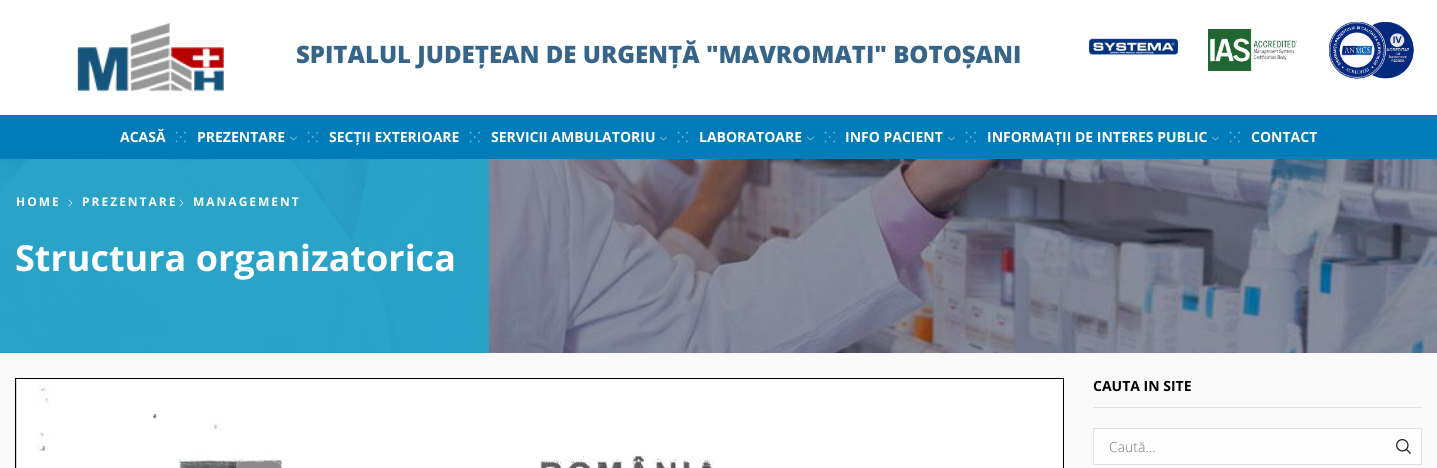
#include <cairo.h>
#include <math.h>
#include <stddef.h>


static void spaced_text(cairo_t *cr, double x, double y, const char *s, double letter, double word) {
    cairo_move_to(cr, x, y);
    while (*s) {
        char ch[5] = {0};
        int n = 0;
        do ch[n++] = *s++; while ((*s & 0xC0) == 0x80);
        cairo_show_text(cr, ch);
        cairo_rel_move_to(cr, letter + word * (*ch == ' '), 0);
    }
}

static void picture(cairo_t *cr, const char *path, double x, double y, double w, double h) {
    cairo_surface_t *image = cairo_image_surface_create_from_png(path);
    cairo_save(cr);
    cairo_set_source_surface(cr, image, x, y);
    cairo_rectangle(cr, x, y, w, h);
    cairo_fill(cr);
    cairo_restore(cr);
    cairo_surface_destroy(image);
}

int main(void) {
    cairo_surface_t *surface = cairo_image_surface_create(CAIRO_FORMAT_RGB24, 1437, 468);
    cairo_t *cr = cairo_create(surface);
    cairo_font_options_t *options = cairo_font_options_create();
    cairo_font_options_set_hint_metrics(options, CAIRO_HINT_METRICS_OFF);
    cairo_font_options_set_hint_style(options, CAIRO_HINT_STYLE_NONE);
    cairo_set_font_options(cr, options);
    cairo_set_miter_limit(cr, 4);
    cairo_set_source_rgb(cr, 0.98, 0.98, 0.98);
    cairo_paint(cr);
    cairo_set_source_rgb(cr, 1, 1, 1);
    cairo_rectangle(cr, 0, 0, 1437, 115);
    cairo_fill(cr);
    picture(cr, "img1.png", 77, 22, 147, 70);
    cairo_select_font_face(cr, "Open Sans ExtraBold", CAIRO_FONT_SLANT_NORMAL, CAIRO_FONT_WEIGHT_NORMAL);
    cairo_set_font_size(cr, 24);
    cairo_set_source_rgb(cr, 0.212, 0.396, 0.537);
    cairo_move_to(cr, 296, 63);
    cairo_show_text(cr, "SPITALUL JUDEȚEAN DE URGENȚĂ \"MAVROMATI\" BOTOȘANI");
    picture(cr, "img2.png", 1089, 38, 89, 17);
    picture(cr, "img3.png", 1208, 29, 89, 42);
    picture(cr, "img4.png", 1329, 21, 85, 58);
    cairo_set_source_rgb(cr, 0, 0.486, 0.729);
    cairo_rectangle(cr, 0, 115, 1437, 44);
    cairo_fill(cr);
    cairo_select_font_face(cr, "Open Sans", CAIRO_FONT_SLANT_NORMAL, CAIRO_FONT_WEIGHT_BOLD);
    cairo_set_font_size(cr, 14);
    cairo_set_source_rgb(cr, 1, 1, 1);
    cairo_move_to(cr, 120, 142);
    cairo_show_text(cr, "ACASĂ");
    cairo_select_font_face(cr, "Noto Sans", CAIRO_FONT_SLANT_NORMAL, CAIRO_FONT_WEIGHT_NORMAL);
    cairo_set_source_rgb(cr, 0.502, 0.745, 0.867);
    cairo_move_to(cr, 175, 142);
    cairo_show_text(cr, "⁙");
    cairo_select_font_face(cr, "Open Sans", CAIRO_FONT_SLANT_NORMAL, CAIRO_FONT_WEIGHT_BOLD);
    cairo_set_source_rgb(cr, 1, 1, 1);
    cairo_move_to(cr, 197, 142);
    cairo_show_text(cr, "PREZENTARE");
    picture(cr, "img5.png", 290, 136, 7, 5);
    cairo_select_font_face(cr, "Noto Sans", CAIRO_FONT_SLANT_NORMAL, CAIRO_FONT_WEIGHT_NORMAL);
    cairo_set_source_rgb(cr, 0.502, 0.745, 0.867);
    cairo_move_to(cr, 307, 142);
    cairo_show_text(cr, "⁙");
    cairo_select_font_face(cr, "Open Sans", CAIRO_FONT_SLANT_NORMAL, CAIRO_FONT_WEIGHT_BOLD);
    cairo_set_source_rgb(cr, 1, 1, 1);
    cairo_move_to(cr, 329, 142);
    cairo_show_text(cr, "SECȚII EXTERIOARE");
    cairo_select_font_face(cr, "Noto Sans", CAIRO_FONT_SLANT_NORMAL, CAIRO_FONT_WEIGHT_NORMAL);
    cairo_set_source_rgb(cr, 0.502, 0.745, 0.867);
    cairo_move_to(cr, 469, 142);
    cairo_show_text(cr, "⁙");
    cairo_select_font_face(cr, "Open Sans", CAIRO_FONT_SLANT_NORMAL, CAIRO_FONT_WEIGHT_BOLD);
    cairo_set_source_rgb(cr, 1, 1, 1);
    cairo_move_to(cr, 491, 142);
    cairo_show_text(cr, "SERVICII AMBULATORIU");
    picture(cr, "img5.png", 660, 136, 7, 5);
    cairo_select_font_face(cr, "Noto Sans", CAIRO_FONT_SLANT_NORMAL, CAIRO_FONT_WEIGHT_NORMAL);
    cairo_set_source_rgb(cr, 0.502, 0.745, 0.867);
    cairo_move_to(cr, 677, 142);
    cairo_show_text(cr, "⁙");
    cairo_select_font_face(cr, "Open Sans", CAIRO_FONT_SLANT_NORMAL, CAIRO_FONT_WEIGHT_BOLD);
    cairo_set_source_rgb(cr, 1, 1, 1);
    cairo_move_to(cr, 699, 142);
    cairo_show_text(cr, "LABORATOARE");
    picture(cr, "img5.png", 807, 136, 7, 5);
    cairo_select_font_face(cr, "Noto Sans", CAIRO_FONT_SLANT_NORMAL, CAIRO_FONT_WEIGHT_NORMAL);
    cairo_set_source_rgb(cr, 0.502, 0.745, 0.867);
    cairo_move_to(cr, 824, 142);
    cairo_show_text(cr, "⁙");
    cairo_select_font_face(cr, "Open Sans", CAIRO_FONT_SLANT_NORMAL, CAIRO_FONT_WEIGHT_BOLD);
    cairo_set_source_rgb(cr, 1, 1, 1);
    cairo_move_to(cr, 845, 142);
    cairo_show_text(cr, "INFO PACIENT");
    picture(cr, "img5.png", 948, 136, 7, 5);
    cairo_select_font_face(cr, "Noto Sans", CAIRO_FONT_SLANT_NORMAL, CAIRO_FONT_WEIGHT_NORMAL);
    cairo_set_source_rgb(cr, 0.502, 0.745, 0.867);
    cairo_move_to(cr, 965, 142);
    cairo_show_text(cr, "⁙");
    cairo_select_font_face(cr, "Open Sans", CAIRO_FONT_SLANT_NORMAL, CAIRO_FONT_WEIGHT_BOLD);
    cairo_set_source_rgb(cr, 1, 1, 1);
    cairo_move_to(cr, 987, 142);
    cairo_show_text(cr, "INFORMAȚII DE INTERES PUBLIC");
    picture(cr, "img5.png", 1212, 136, 7, 5);
    cairo_select_font_face(cr, "Noto Sans", CAIRO_FONT_SLANT_NORMAL, CAIRO_FONT_WEIGHT_NORMAL);
    cairo_set_source_rgb(cr, 0.502, 0.745, 0.867);
    cairo_move_to(cr, 1229, 142);
    cairo_show_text(cr, "⁙");
    cairo_select_font_face(cr, "Open Sans", CAIRO_FONT_SLANT_NORMAL, CAIRO_FONT_WEIGHT_BOLD);
    cairo_set_source_rgb(cr, 1, 1, 1);
    cairo_move_to(cr, 1251, 142);
    cairo_show_text(cr, "CONTACT");
    picture(cr, "img6.png", 0, 159, 1437, 194);
    cairo_set_source_rgba(cr, 0.122, 0.647, 0.804, 0.9);
    cairo_rectangle(cr, 0, 159, 489, 194);
    cairo_fill(cr);
    cairo_set_font_size(cr, 12);
    cairo_set_source_rgb(cr, 1, 1, 1);
    spaced_text(cr, 16, 206, "HOME", 2, 0);
    picture(cr, "img7.png", 68, 199, 5, 8);
    spaced_text(cr, 82, 206, "PREZENTARE", 2, 0);
    picture(cr, "img7.png", 179, 199, 5, 8);
    spaced_text(cr, 193, 206, "MANAGEMENT", 2, 0);
    cairo_set_font_size(cr, 36);
    cairo_move_to(cr, 15, 271);
    cairo_show_text(cr, "Structura organizatorica");
    cairo_set_source_rgb(cr, 0.827, 0.827, 0.827);
    cairo_rectangle(cr, 16, 379, 1, 89);
    cairo_fill(cr);
    cairo_rectangle(cr, 15.5, 378.5, 1048, 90);
    cairo_set_source_rgb(cr, 0, 0, 0);
    cairo_set_line_width(cr, 1);
    cairo_stroke(cr);
    cairo_set_source_rgb(cr, 1, 1, 1);
    cairo_rectangle(cr, 17, 379, 1046, 89);
    cairo_fill(cr);
    picture(cr, "img8.png", 37, 384, 676, 84);
    cairo_set_source_rgb(cr, 0.882, 0.882, 0.882);
    cairo_rectangle(cr, 1093, 407, 329, 1);
    cairo_fill(cr);
    cairo_set_font_size(cr, 14);
    cairo_set_source_rgb(cr, 0, 0, 0);
    cairo_move_to(cr, 1093, 391);
    cairo_show_text(cr, "CAUTA IN SITE");
    cairo_set_source_rgb(cr, 0.996, 0.996, 0.996);
    cairo_rectangle(cr, 1093.5, 428.5, 328, 36);
    cairo_fill_preserve(cr);
    cairo_set_source_rgb(cr, 0.882, 0.882, 0.882);
    cairo_stroke(cr);
    cairo_select_font_face(cr, "Open Sans Light", CAIRO_FONT_SLANT_NORMAL, CAIRO_FONT_WEIGHT_NORMAL);
    cairo_set_source_rgb(cr, 0.459, 0.459, 0.459);
    cairo_move_to(cr, 1109, 452);
    cairo_show_text(cr, "Caută...");
    picture(cr, "img9.png", 1396, 439, 15, 15);
    cairo_surface_write_to_png(surface, "page.png");
    cairo_font_options_destroy(options);
    cairo_destroy(cr);
    cairo_surface_destroy(surface);
    return 0;
}
